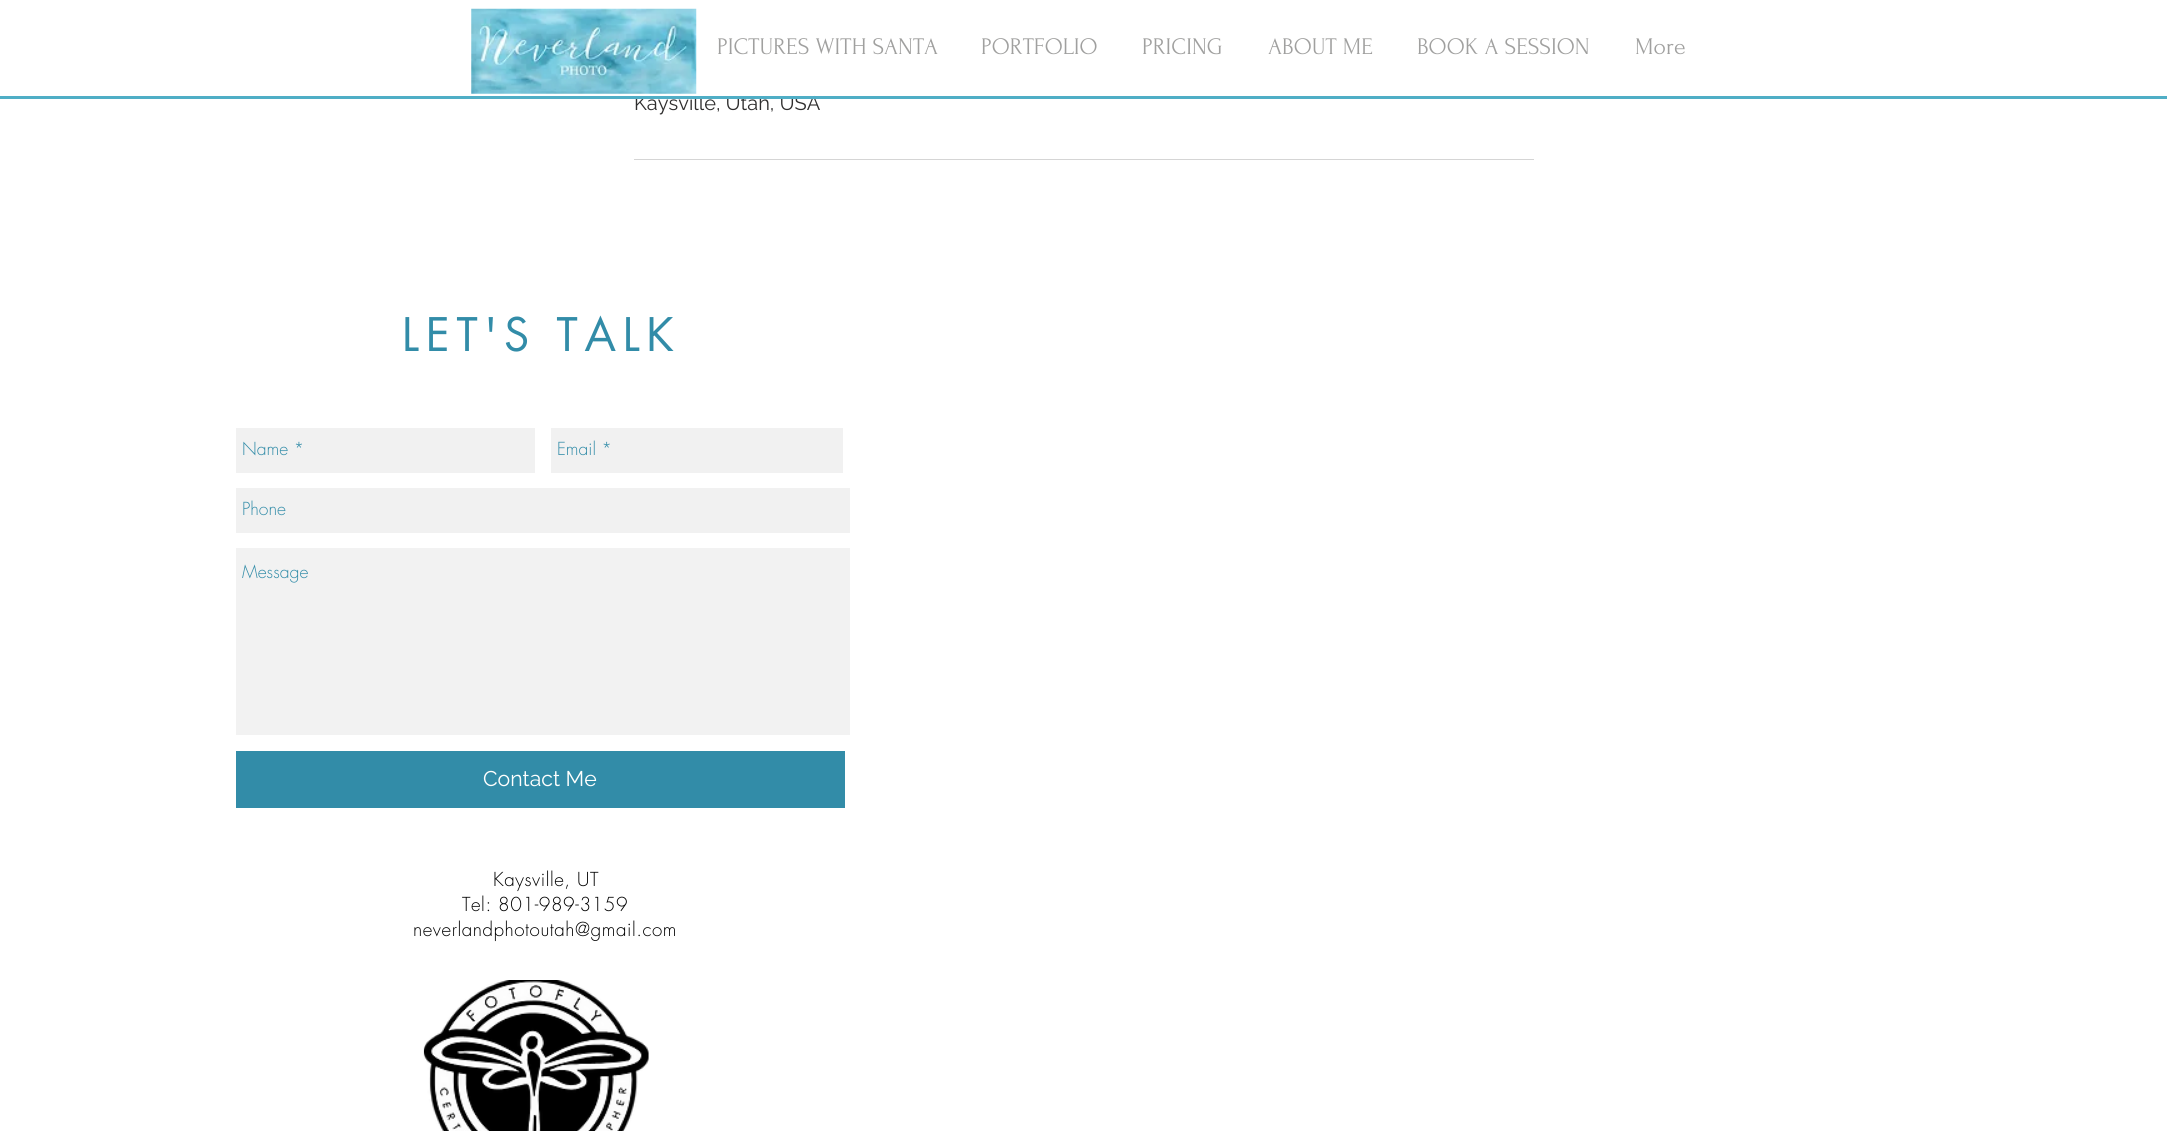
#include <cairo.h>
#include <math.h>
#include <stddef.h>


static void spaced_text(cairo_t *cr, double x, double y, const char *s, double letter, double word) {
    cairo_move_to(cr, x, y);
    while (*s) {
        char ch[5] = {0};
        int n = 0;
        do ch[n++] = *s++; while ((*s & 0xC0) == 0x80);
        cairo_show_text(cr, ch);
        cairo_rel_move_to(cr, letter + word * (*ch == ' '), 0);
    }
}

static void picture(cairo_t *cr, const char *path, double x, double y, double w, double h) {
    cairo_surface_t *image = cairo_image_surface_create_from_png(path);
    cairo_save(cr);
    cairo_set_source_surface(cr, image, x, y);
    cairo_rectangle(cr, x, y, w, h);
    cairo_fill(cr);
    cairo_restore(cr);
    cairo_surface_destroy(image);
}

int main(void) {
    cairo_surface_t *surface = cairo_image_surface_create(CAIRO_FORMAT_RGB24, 2167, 1131);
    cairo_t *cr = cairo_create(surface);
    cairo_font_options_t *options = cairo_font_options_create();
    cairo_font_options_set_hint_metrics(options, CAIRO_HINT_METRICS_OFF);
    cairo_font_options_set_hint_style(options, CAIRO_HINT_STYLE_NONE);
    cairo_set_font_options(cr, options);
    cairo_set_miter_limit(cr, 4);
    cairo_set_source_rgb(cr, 1, 1, 1);
    cairo_paint(cr);
    picture(cr, "img1.png", 471, 8, 226, 86);
    cairo_select_font_face(cr, "Forum", CAIRO_FONT_SLANT_NORMAL, CAIRO_FONT_WEIGHT_NORMAL);
    cairo_set_font_size(cr, 23.75);
    cairo_set_source_rgb(cr, 0.627, 0.627, 0.624);
    cairo_move_to(cr, 717, 54);
    cairo_show_text(cr, "PICTURES WITH SANTA");
    cairo_move_to(cr, 981, 54);
    cairo_show_text(cr, "PORTFOLIO");
    cairo_move_to(cr, 1142, 54);
    cairo_show_text(cr, "PRICING");
    cairo_move_to(cr, 1268, 54);
    cairo_show_text(cr, "ABOUT ME");
    cairo_move_to(cr, 1417, 54);
    cairo_show_text(cr, "BOOK A SESSION");
    cairo_move_to(cr, 1635, 54);
    cairo_show_text(cr, "More");
    cairo_select_font_face(cr, "Raleway", CAIRO_FONT_SLANT_NORMAL, CAIRO_FONT_WEIGHT_NORMAL);
    cairo_set_font_size(cr, 20);
    cairo_set_source_rgb(cr, 0.184, 0.18, 0.18);
    cairo_move_to(cr, 634, 110);
    cairo_show_text(cr, "Kaysville, Utah, USA");
    cairo_set_source_rgb(cr, 1, 1, 1);
    cairo_rectangle(cr, 635, 95, 179, 1);
    cairo_fill(cr);
    cairo_set_source_rgb(cr, 0.31, 0.682, 0.776);
    cairo_rectangle(cr, 0, 96, 2167, 3);
    cairo_fill(cr);
    cairo_set_source_rgb(cr, 0.835, 0.835, 0.835);
    cairo_rectangle(cr, 634, 159, 900, 1);
    cairo_fill(cr);
    cairo_select_font_face(cr, "futura", CAIRO_FONT_SLANT_NORMAL, CAIRO_FONT_WEIGHT_NORMAL);
    cairo_set_font_size(cr, 45);
    cairo_set_source_rgb(cr, 0.196, 0.549, 0.659);
    spaced_text(cr, 402, 351, "LET'S TALK", 6.75, 0);
    cairo_set_source_rgb(cr, 0.945, 0.945, 0.945);
    cairo_rectangle(cr, 236, 428, 299, 45);
    cairo_fill(cr);
    cairo_select_font_face(cr, "futura Light", CAIRO_FONT_SLANT_NORMAL, CAIRO_FONT_WEIGHT_NORMAL);
    cairo_set_font_size(cr, 17.5);
    cairo_set_source_rgb(cr, 0.196, 0.549, 0.659);
    cairo_move_to(cr, 242, 455);
    cairo_show_text(cr, "Name *");
    cairo_set_source_rgb(cr, 0.945, 0.945, 0.945);
    cairo_rectangle(cr, 551, 428, 292, 45);
    cairo_fill(cr);
    cairo_set_source_rgb(cr, 0.196, 0.549, 0.659);
    cairo_move_to(cr, 557, 455);
    cairo_show_text(cr, "Email *");
    cairo_set_source_rgb(cr, 0.945, 0.945, 0.945);
    cairo_rectangle(cr, 236, 488, 614, 45);
    cairo_fill(cr);
    cairo_set_source_rgb(cr, 0.196, 0.549, 0.659);
    cairo_move_to(cr, 242, 515);
    cairo_show_text(cr, "Phone");
    cairo_set_source_rgb(cr, 0.949, 0.949, 0.949);
    cairo_rectangle(cr, 236, 548, 614, 187);
    cairo_fill(cr);
    cairo_set_source_rgb(cr, 0.196, 0.549, 0.659);
    cairo_move_to(cr, 242, 578);
    cairo_show_text(cr, "Message");
    cairo_rectangle(cr, 236, 751, 609, 57);
    cairo_fill(cr);
    cairo_select_font_face(cr, "Raleway", CAIRO_FONT_SLANT_NORMAL, CAIRO_FONT_WEIGHT_NORMAL);
    cairo_set_font_size(cr, 21.25);
    cairo_set_source_rgb(cr, 1, 1, 0.996);
    cairo_move_to(cr, 483, 786);
    cairo_show_text(cr, "Contact Me");
    cairo_select_font_face(cr, "futura Light", CAIRO_FONT_SLANT_NORMAL, CAIRO_FONT_WEIGHT_NORMAL);
    cairo_set_font_size(cr, 18.75);
    cairo_set_source_rgb(cr, 0, 0, 0);
    spaced_text(cr, 493, 886, "Kaysville, UT", 0.55, 0);
    spaced_text(cr, 462, 911, "Tel: 801-989-3159", 0.55, 0);
    spaced_text(cr, 413, 936, "neverlandphotoutah@gmail.com", 0.55, 0);
    picture(cr, "img2.png", 423, 980, 226, 151);
    cairo_surface_write_to_png(surface, "page.png");
    cairo_font_options_destroy(options);
    cairo_destroy(cr);
    cairo_surface_destroy(surface);
    return 0;
}
